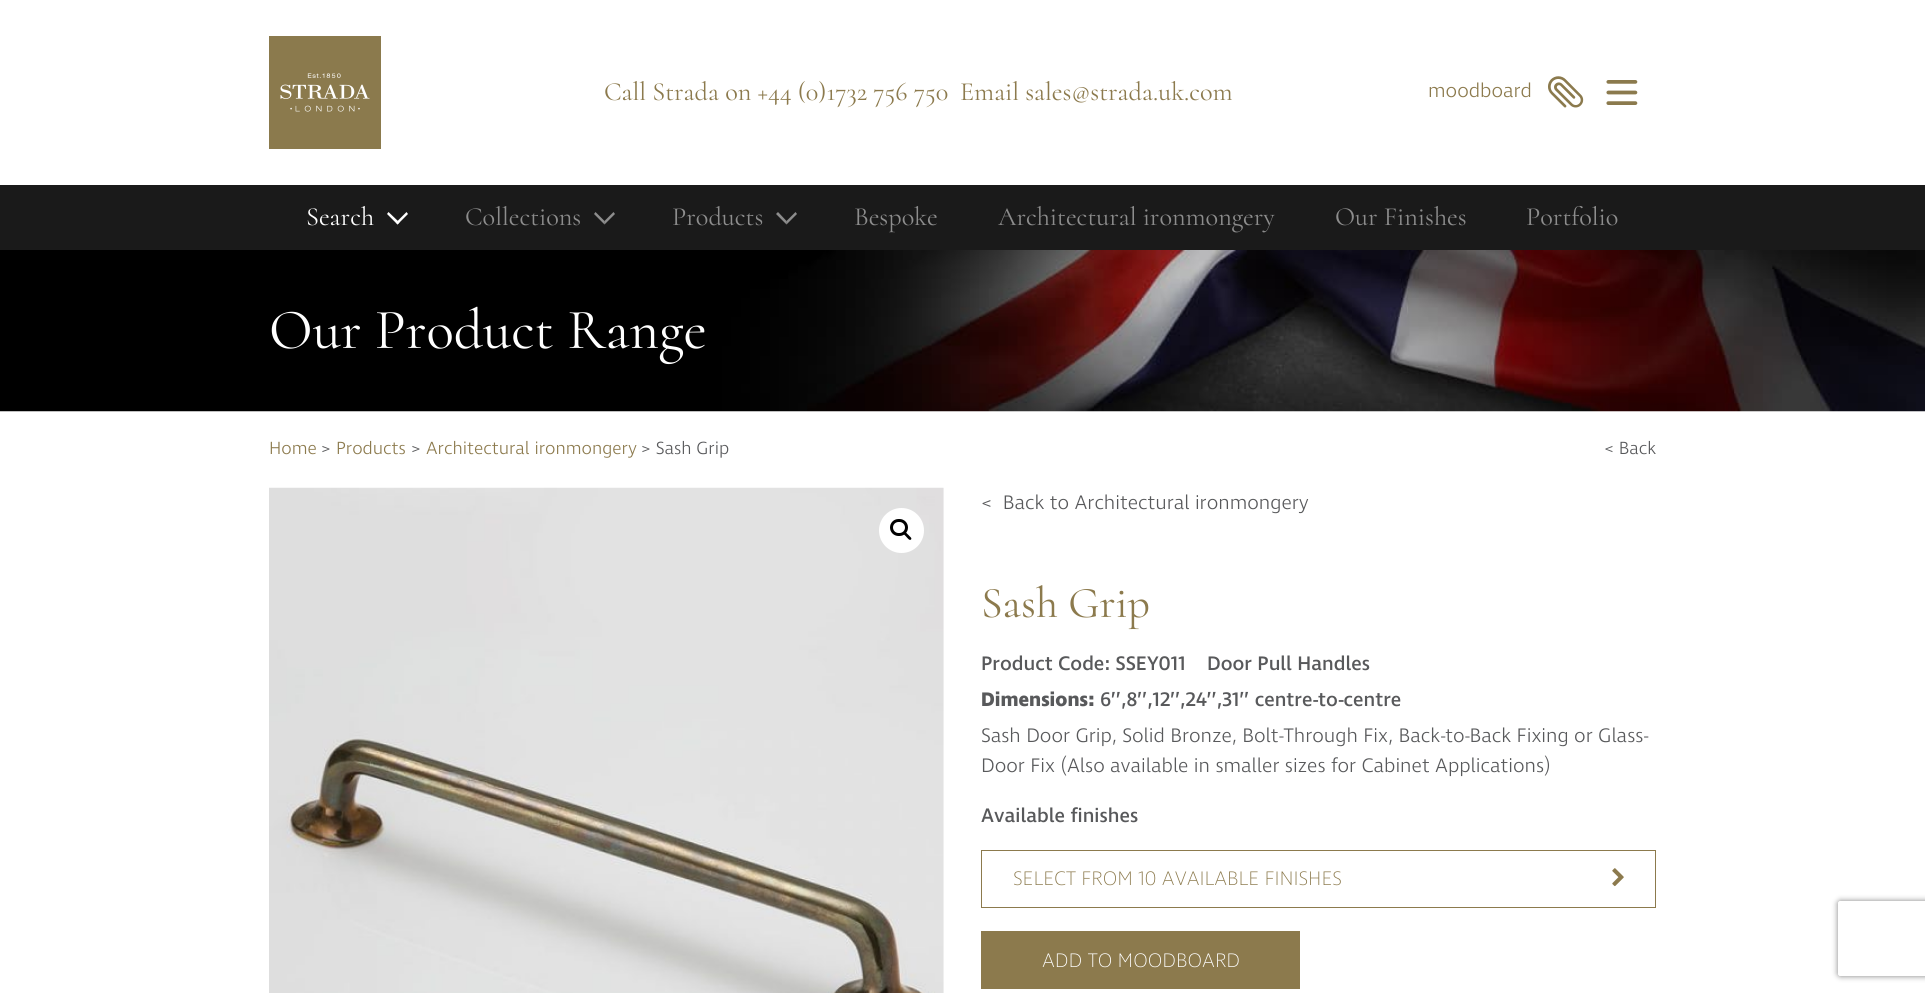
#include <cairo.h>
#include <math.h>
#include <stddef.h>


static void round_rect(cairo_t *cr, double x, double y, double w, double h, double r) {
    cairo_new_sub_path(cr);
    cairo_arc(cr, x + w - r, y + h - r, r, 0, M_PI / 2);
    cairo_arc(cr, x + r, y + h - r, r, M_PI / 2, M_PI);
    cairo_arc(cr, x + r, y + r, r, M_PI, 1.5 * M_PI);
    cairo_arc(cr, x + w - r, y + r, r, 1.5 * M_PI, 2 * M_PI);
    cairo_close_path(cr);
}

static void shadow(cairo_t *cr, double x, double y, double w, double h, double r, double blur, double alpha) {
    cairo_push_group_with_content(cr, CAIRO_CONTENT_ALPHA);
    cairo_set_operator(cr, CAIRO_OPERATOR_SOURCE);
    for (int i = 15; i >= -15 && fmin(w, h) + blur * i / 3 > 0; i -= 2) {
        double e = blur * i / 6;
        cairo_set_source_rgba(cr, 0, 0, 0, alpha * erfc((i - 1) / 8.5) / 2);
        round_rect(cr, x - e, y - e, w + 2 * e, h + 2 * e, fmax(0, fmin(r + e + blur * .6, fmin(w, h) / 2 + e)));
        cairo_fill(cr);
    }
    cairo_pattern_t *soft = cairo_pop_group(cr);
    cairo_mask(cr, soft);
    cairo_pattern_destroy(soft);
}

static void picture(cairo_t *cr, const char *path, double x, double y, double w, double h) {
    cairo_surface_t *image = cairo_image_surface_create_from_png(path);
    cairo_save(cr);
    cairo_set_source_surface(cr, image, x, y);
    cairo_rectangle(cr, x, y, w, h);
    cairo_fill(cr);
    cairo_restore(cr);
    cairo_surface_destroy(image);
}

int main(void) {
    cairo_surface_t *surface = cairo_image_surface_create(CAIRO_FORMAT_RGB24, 1925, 993);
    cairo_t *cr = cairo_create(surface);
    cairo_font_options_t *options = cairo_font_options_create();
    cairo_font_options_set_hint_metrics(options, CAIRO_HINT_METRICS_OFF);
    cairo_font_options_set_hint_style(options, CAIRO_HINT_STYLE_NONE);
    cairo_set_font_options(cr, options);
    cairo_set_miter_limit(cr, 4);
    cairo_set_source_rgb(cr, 1, 1, 1);
    cairo_paint(cr);
    picture(cr, "img1.png", 269, 36, 112, 113);
    cairo_select_font_face(cr, "Cormorant Light", CAIRO_FONT_SLANT_NORMAL, CAIRO_FONT_WEIGHT_NORMAL);
    cairo_set_font_size(cr, 26.25);
    cairo_set_source_rgb(cr, 0.549, 0.478, 0.302);
    cairo_move_to(cr, 604, 100);
    cairo_show_text(cr, "Call Strada on +44 (0)1732 756 750");
    cairo_move_to(cr, 960, 100);
    cairo_show_text(cr, "Email sales@strada.uk.com");
    cairo_select_font_face(cr, "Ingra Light", CAIRO_FONT_SLANT_NORMAL, CAIRO_FONT_WEIGHT_NORMAL);
    cairo_set_font_size(cr, 20);
    cairo_move_to(cr, 1428, 97);
    cairo_show_text(cr, "moodboard");
    picture(cr, "img2.png", 1548, 76, 36, 32);
    picture(cr, "img3.png", 1606, 80, 32, 25);
    cairo_set_source_rgb(cr, 0.102, 0.102, 0.102);
    cairo_rectangle(cr, 0, 185, 1925, 65);
    cairo_fill(cr);
    cairo_select_font_face(cr, "Cormorant Light", CAIRO_FONT_SLANT_NORMAL, CAIRO_FONT_WEIGHT_NORMAL);
    cairo_set_font_size(cr, 26.25);
    cairo_set_source_rgb(cr, 1, 1, 1);
    cairo_move_to(cr, 306, 225);
    cairo_show_text(cr, "Search");
    cairo_new_path(cr);
    cairo_move_to(cr, 406.5, 212);
    cairo_line_to(cr, 408, 214);
    cairo_line_to(cr, 397.5, 224.5);
    cairo_line_to(cr, 396, 222.5);
    cairo_close_path(cr);
    cairo_fill(cr);
    cairo_new_path(cr);
    cairo_move_to(cr, 388.5, 212);
    cairo_line_to(cr, 399.5, 222.5);
    cairo_line_to(cr, 397.5, 224.5);
    cairo_line_to(cr, 387, 214);
    cairo_close_path(cr);
    cairo_fill(cr);
    cairo_set_source_rgb(cr, 0.553, 0.553, 0.553);
    cairo_move_to(cr, 465, 225);
    cairo_show_text(cr, "Collections");
    cairo_new_path(cr);
    cairo_move_to(cr, 615, 214);
    cairo_line_to(cr, 604.5, 224.5);
    cairo_line_to(cr, 604.5, 221);
    cairo_line_to(cr, 613.5, 212);
    cairo_close_path(cr);
    cairo_fill(cr);
    cairo_set_source_rgba(cr, 1, 1, 1, 0.5);
    cairo_new_path(cr);
    cairo_move_to(cr, 604.5, 224.5);
    cairo_line_to(cr, 594, 214);
    cairo_line_to(cr, 595.5, 212);
    cairo_line_to(cr, 604.5, 221);
    cairo_close_path(cr);
    cairo_fill(cr);
    cairo_set_source_rgb(cr, 0.553, 0.553, 0.553);
    cairo_move_to(cr, 672, 225);
    cairo_show_text(cr, "Products");
    cairo_new_path(cr);
    cairo_move_to(cr, 797, 214);
    cairo_line_to(cr, 786.5, 224.5);
    cairo_line_to(cr, 786.5, 221);
    cairo_line_to(cr, 795.5, 212);
    cairo_close_path(cr);
    cairo_fill(cr);
    cairo_set_source_rgba(cr, 1, 1, 1, 0.5);
    cairo_new_path(cr);
    cairo_move_to(cr, 786.5, 224.5);
    cairo_line_to(cr, 776, 214);
    cairo_line_to(cr, 778, 212);
    cairo_line_to(cr, 786.5, 221);
    cairo_close_path(cr);
    cairo_fill(cr);
    cairo_set_source_rgb(cr, 0.553, 0.553, 0.553);
    cairo_move_to(cr, 854, 225);
    cairo_show_text(cr, "Bespoke");
    cairo_move_to(cr, 998, 225);
    cairo_show_text(cr, "Architectural ironmongery");
    cairo_move_to(cr, 1335, 225);
    cairo_show_text(cr, "Our Finishes");
    cairo_move_to(cr, 1526, 225);
    cairo_show_text(cr, "Portfolio");
    picture(cr, "img4.png", 0, 250, 1925, 162);
    cairo_set_font_size(cr, 57);
    cairo_set_source_rgb(cr, 1, 1, 1);
    cairo_move_to(cr, 269, 348);
    cairo_show_text(cr, "Our Product Range");
    cairo_select_font_face(cr, "Ingra Light", CAIRO_FONT_SLANT_NORMAL, CAIRO_FONT_WEIGHT_NORMAL);
    cairo_set_font_size(cr, 18);
    cairo_set_source_rgb(cr, 0.549, 0.478, 0.302);
    cairo_move_to(cr, 269, 454);
    cairo_show_text(cr, "Home");
    cairo_set_source_rgb(cr, 0.345, 0.349, 0.357);
    cairo_move_to(cr, 321, 454);
    cairo_show_text(cr, ">");
    cairo_set_source_rgb(cr, 0.549, 0.478, 0.302);
    cairo_move_to(cr, 336, 454);
    cairo_show_text(cr, "Products");
    cairo_set_source_rgb(cr, 0.345, 0.349, 0.357);
    cairo_move_to(cr, 411, 454);
    cairo_show_text(cr, ">");
    cairo_set_source_rgb(cr, 0.549, 0.478, 0.302);
    cairo_move_to(cr, 426, 454);
    cairo_show_text(cr, "Architectural ironmongery");
    cairo_set_source_rgb(cr, 0.345, 0.349, 0.357);
    cairo_move_to(cr, 641, 454);
    cairo_show_text(cr, "> Sash Grip");
    cairo_move_to(cr, 1604, 454);
    cairo_show_text(cr, "< Back");
    picture(cr, "img5.png", 269, 487, 675, 506);
    cairo_set_source_rgb(cr, 1, 1, 1);
    cairo_arc(cr, 901.5, 530.5, 22.5, 0, 2 * M_PI);
    cairo_fill(cr);
    round_rect(cr, 891.5, 520.5, 15, 14, 7);
    cairo_set_source_rgb(cr, 0, 0, 0);
    cairo_set_line_width(cr, 3);
    cairo_stroke(cr);
    cairo_new_path(cr);
    cairo_move_to(cr, 904, 532.5);
    cairo_curve_to(cr, 905.5, 531, 907.5, 534.5, 908.5, 535);
    cairo_curve_to(cr, 909, 536, 912.5, 538, 911, 539.5);
    cairo_curve_to(cr, 909.5, 541, 907.5, 538, 906.5, 537);
    cairo_curve_to(cr, 906, 536, 902.5, 534, 904, 532.5);
    cairo_close_path(cr);
    cairo_fill(cr);
    cairo_set_font_size(cr, 20);
    cairo_set_source_rgb(cr, 0.345, 0.349, 0.357);
    cairo_move_to(cr, 981, 509);
    cairo_show_text(cr, "<  Back to Architectural ironmongery");
    cairo_select_font_face(cr, "Cormorant Light", CAIRO_FONT_SLANT_NORMAL, CAIRO_FONT_WEIGHT_NORMAL);
    cairo_set_font_size(cr, 44);
    cairo_set_source_rgb(cr, 0.549, 0.478, 0.302);
    cairo_move_to(cr, 981, 617);
    cairo_show_text(cr, "Sash Grip");
    cairo_select_font_face(cr, "Ingra Medium", CAIRO_FONT_SLANT_NORMAL, CAIRO_FONT_WEIGHT_NORMAL);
    cairo_set_font_size(cr, 20);
    cairo_set_source_rgb(cr, 0.345, 0.349, 0.357);
    cairo_move_to(cr, 981, 670);
    cairo_show_text(cr, "Product Code: SSEY011");
    cairo_move_to(cr, 1207, 670);
    cairo_show_text(cr, "Door Pull Handles");
    cairo_select_font_face(cr, "Ingra", CAIRO_FONT_SLANT_NORMAL, CAIRO_FONT_WEIGHT_BOLD);
    cairo_move_to(cr, 981, 706);
    cairo_show_text(cr, "Dimensions:");
    cairo_select_font_face(cr, "Ingra Medium", CAIRO_FONT_SLANT_NORMAL, CAIRO_FONT_WEIGHT_NORMAL);
    cairo_move_to(cr, 1100, 706);
    cairo_show_text(cr, "6’’,8’’,12’’,24’’,31’’ centre-to-centre");
    cairo_select_font_face(cr, "Ingra Light", CAIRO_FONT_SLANT_NORMAL, CAIRO_FONT_WEIGHT_NORMAL);
    cairo_move_to(cr, 981, 742);
    cairo_show_text(cr, "Sash Door Grip, Solid Bronze, Bolt-Through Fix, Back-to-Back Fixing or Glass-");
    cairo_move_to(cr, 981, 772);
    cairo_show_text(cr, "Door Fix (Also available in smaller sizes for Cabinet Applications)");
    cairo_select_font_face(cr, "Ingra Medium", CAIRO_FONT_SLANT_NORMAL, CAIRO_FONT_WEIGHT_NORMAL);
    cairo_move_to(cr, 981, 822);
    cairo_show_text(cr, "Available finishes");
    cairo_rectangle(cr, 981.5, 850.5, 674, 57);
    cairo_set_source_rgb(cr, 0.549, 0.478, 0.302);
    cairo_set_line_width(cr, 1);
    cairo_stroke(cr);
    cairo_select_font_face(cr, "Ingra ExtraLight", CAIRO_FONT_SLANT_NORMAL, CAIRO_FONT_WEIGHT_NORMAL);
    cairo_move_to(cr, 1013, 885);
    cairo_show_text(cr, "SELECT FROM 10 AVAILABLE FINISHES");
    picture(cr, "img6.png", 1612, 868, 12, 19);
    cairo_rectangle(cr, 981, 931, 319, 58);
    cairo_fill(cr);
    cairo_set_source_rgb(cr, 1, 1, 1);
    cairo_move_to(cr, 1042, 967);
    cairo_show_text(cr, "ADD TO MOODBOARD");
    cairo_save(cr);
    cairo_set_fill_rule(cr, CAIRO_FILL_RULE_EVEN_ODD);
    cairo_new_path(cr);
    cairo_move_to(cr, 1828, 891);
    cairo_line_to(cr, 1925, 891);
    cairo_line_to(cr, 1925, 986);
    cairo_line_to(cr, 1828, 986);
    cairo_close_path(cr);
    cairo_move_to(cr, 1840.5, 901);
    cairo_line_to(cr, 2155.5, 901);
    cairo_curve_to(cr, 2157, 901, 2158, 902, 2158, 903.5);
    cairo_line_to(cr, 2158, 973.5);
    cairo_curve_to(cr, 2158, 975, 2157, 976, 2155.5, 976);
    cairo_line_to(cr, 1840.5, 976);
    cairo_curve_to(cr, 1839, 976, 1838, 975, 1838, 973.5);
    cairo_line_to(cr, 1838, 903.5);
    cairo_curve_to(cr, 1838, 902, 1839, 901, 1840.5, 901);
    cairo_close_path(cr);
    cairo_clip(cr);
    cairo_set_source_rgb(cr, 0.502, 0.502, 0.502);
    shadow(cr, 1838, 901, 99, 75, 2.5, 3, 1);
    cairo_restore(cr);
    cairo_surface_write_to_png(surface, "page.png");
    cairo_font_options_destroy(options);
    cairo_destroy(cr);
    cairo_surface_destroy(surface);
    return 0;
}
